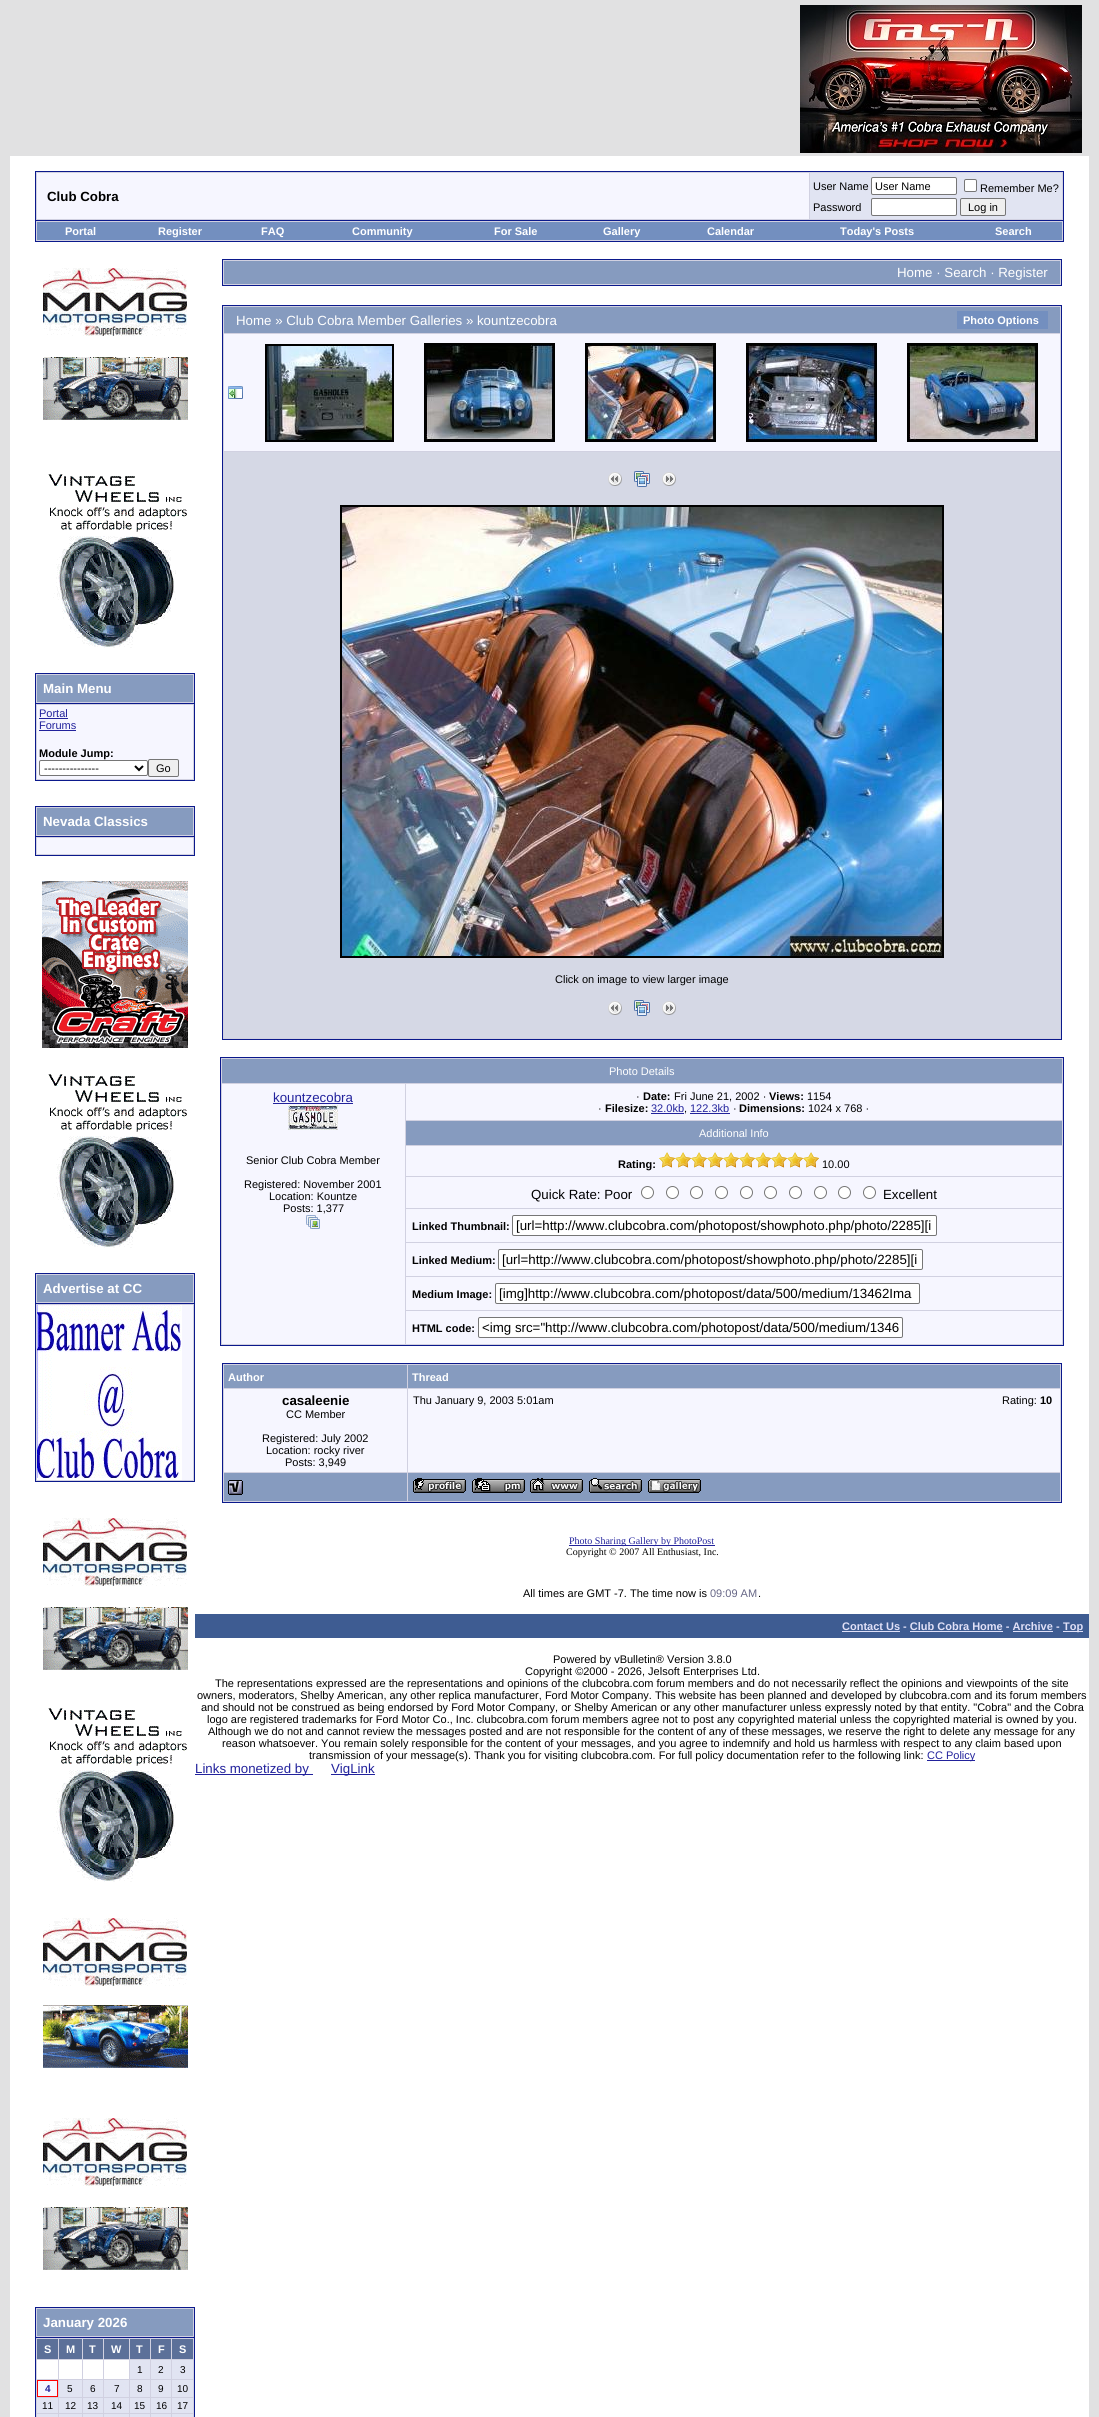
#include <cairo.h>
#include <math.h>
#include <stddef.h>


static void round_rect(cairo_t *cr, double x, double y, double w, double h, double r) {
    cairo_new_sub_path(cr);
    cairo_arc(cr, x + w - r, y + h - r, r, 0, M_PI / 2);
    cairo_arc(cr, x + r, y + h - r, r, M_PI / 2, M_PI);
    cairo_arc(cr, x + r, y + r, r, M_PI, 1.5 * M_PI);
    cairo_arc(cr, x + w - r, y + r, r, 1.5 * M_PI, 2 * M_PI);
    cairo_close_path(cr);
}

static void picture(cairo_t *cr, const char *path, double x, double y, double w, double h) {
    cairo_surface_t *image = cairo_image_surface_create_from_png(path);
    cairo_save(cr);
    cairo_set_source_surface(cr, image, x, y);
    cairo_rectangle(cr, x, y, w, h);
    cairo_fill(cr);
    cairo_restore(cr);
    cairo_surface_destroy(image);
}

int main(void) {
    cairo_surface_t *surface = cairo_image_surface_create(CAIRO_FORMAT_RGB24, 1099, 2417);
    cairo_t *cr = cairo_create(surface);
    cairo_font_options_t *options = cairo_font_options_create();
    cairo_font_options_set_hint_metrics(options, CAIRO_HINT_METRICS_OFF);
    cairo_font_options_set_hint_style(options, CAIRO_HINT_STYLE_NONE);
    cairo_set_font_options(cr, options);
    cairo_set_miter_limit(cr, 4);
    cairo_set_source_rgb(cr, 0.882, 0.882, 0.886);
    cairo_paint(cr);
    picture(cr, "img1.png", 800, 5, 282, 148);
    cairo_set_source_rgb(cr, 1, 1, 1);
    cairo_rectangle(cr, 10, 156, 1079, 2261);
    cairo_fill(cr);
    cairo_set_source_rgb(cr, 0.82, 0.82, 0.882);
    cairo_rectangle(cr, 35.5, 171.5, 1028, 49);
    cairo_fill_preserve(cr);
    cairo_set_source_rgb(cr, 0.043, 0.098, 0.549);
    cairo_set_line_width(cr, 1);
    cairo_stroke(cr);
    cairo_set_source_rgb(cr, 0.961, 0.961, 1);
    cairo_rectangle(cr, 37, 173, 772, 46);
    cairo_fill(cr);
    cairo_select_font_face(cr, "Liberation Sans", CAIRO_FONT_SLANT_NORMAL, CAIRO_FONT_WEIGHT_BOLD);
    cairo_set_font_size(cr, 13.3);
    cairo_set_source_rgb(cr, 0, 0, 0);
    cairo_move_to(cr, 47, 201);
    cairo_show_text(cr, "Club Cobra");
    cairo_set_source_rgb(cr, 0.882, 0.894, 0.949);
    cairo_rectangle(cr, 810, 173, 252, 46);
    cairo_fill(cr);
    cairo_select_font_face(cr, "Liberation Sans", CAIRO_FONT_SLANT_NORMAL, CAIRO_FONT_WEIGHT_NORMAL);
    cairo_set_font_size(cr, 11);
    cairo_set_source_rgb(cr, 0, 0, 0);
    cairo_move_to(cr, 813, 190);
    cairo_show_text(cr, "User Name");
    cairo_set_source_rgb(cr, 1, 1, 1);
    round_rect(cr, 871.5, 177.5, 85, 17, 1.5);
    cairo_fill_preserve(cr);
    cairo_set_source_rgb(cr, 0.463, 0.463, 0.463);
    cairo_stroke(cr);
    cairo_set_source_rgb(cr, 0, 0, 0);
    cairo_move_to(cr, 875, 190);
    cairo_show_text(cr, "User Name");
    cairo_set_source_rgb(cr, 1, 1, 1);
    round_rect(cr, 964.5, 179.5, 12, 12, 1.5);
    cairo_fill_preserve(cr);
    cairo_set_source_rgb(cr, 0.463, 0.463, 0.463);
    cairo_stroke(cr);
    cairo_set_source_rgb(cr, 0, 0, 0);
    cairo_move_to(cr, 980, 192);
    cairo_show_text(cr, "Remember Me?");
    cairo_move_to(cr, 813, 211);
    cairo_show_text(cr, "Password");
    cairo_set_source_rgb(cr, 1, 1, 1);
    round_rect(cr, 871.5, 198.5, 85, 17, 1.5);
    cairo_fill_preserve(cr);
    cairo_set_source_rgb(cr, 0.463, 0.463, 0.463);
    cairo_stroke(cr);
    cairo_set_source_rgb(cr, 0.937, 0.937, 0.937);
    round_rect(cr, 960.5, 198.5, 45, 17, 1.5);
    cairo_fill_preserve(cr);
    cairo_set_source_rgb(cr, 0.463, 0.463, 0.463);
    cairo_stroke(cr);
    cairo_set_source_rgb(cr, 0, 0, 0);
    cairo_move_to(cr, 968, 211);
    cairo_show_text(cr, "Log in");
    cairo_set_source_rgb(cr, 0.82, 0.82, 0.882);
    cairo_rectangle(cr, 36, 221, 1027, 20);
    cairo_fill(cr);
    cairo_set_source_rgb(cr, 0.043, 0.098, 0.549);
    cairo_rectangle(cr, 1063, 221, 1, 21);
    cairo_fill(cr);
    cairo_rectangle(cr, 35, 241, 1029, 1);
    cairo_fill(cr);
    cairo_rectangle(cr, 35, 221, 1, 21);
    cairo_fill(cr);
    cairo_set_source_rgb(cr, 0.451, 0.561, 0.749);
    cairo_rectangle(cr, 37, 222, 1025, 18);
    cairo_fill(cr);
    cairo_select_font_face(cr, "Liberation Sans", CAIRO_FONT_SLANT_NORMAL, CAIRO_FONT_WEIGHT_BOLD);
    cairo_set_source_rgb(cr, 1, 1, 1);
    cairo_move_to(cr, 65, 235);
    cairo_show_text(cr, "Portal");
    cairo_move_to(cr, 158, 235);
    cairo_show_text(cr, "Register");
    cairo_move_to(cr, 261, 235);
    cairo_show_text(cr, "FAQ");
    cairo_move_to(cr, 352, 235);
    cairo_show_text(cr, "Community");
    cairo_move_to(cr, 494, 235);
    cairo_show_text(cr, "For Sale");
    cairo_move_to(cr, 603, 235);
    cairo_show_text(cr, "Gallery");
    cairo_move_to(cr, 707, 235);
    cairo_show_text(cr, "Calendar");
    cairo_move_to(cr, 840, 235);
    cairo_show_text(cr, "Today's Posts");
    cairo_move_to(cr, 995, 235);
    cairo_show_text(cr, "Search");
    picture(cr, "img2.png", 43, 268, 145, 152);
    picture(cr, "img3.png", 48, 474, 139, 174);
    cairo_set_source_rgb(cr, 0.82, 0.82, 0.882);
    cairo_rectangle(cr, 36, 674, 158, 29);
    cairo_fill(cr);
    cairo_set_source_rgb(cr, 0.043, 0.098, 0.549);
    cairo_rectangle(cr, 35, 673, 160, 1);
    cairo_fill(cr);
    cairo_rectangle(cr, 194, 673, 1, 30);
    cairo_fill(cr);
    cairo_rectangle(cr, 35, 673, 1, 30);
    cairo_fill(cr);
    cairo_set_source_rgb(cr, 0.525, 0.608, 0.749);
    cairo_rectangle(cr, 37, 675, 156, 27);
    cairo_fill(cr);
    cairo_set_font_size(cr, 13.3);
    cairo_set_source_rgb(cr, 1, 1, 1);
    cairo_move_to(cr, 43, 693);
    cairo_show_text(cr, "Main Menu");
    cairo_set_source_rgb(cr, 0.82, 0.82, 0.882);
    cairo_rectangle(cr, 35.5, 703.5, 159, 77);
    cairo_fill_preserve(cr);
    cairo_set_source_rgb(cr, 0.043, 0.098, 0.549);
    cairo_stroke(cr);
    cairo_set_source_rgb(cr, 0.961, 0.961, 1);
    cairo_rectangle(cr, 37, 705, 156, 74);
    cairo_fill(cr);
    cairo_select_font_face(cr, "Liberation Sans", CAIRO_FONT_SLANT_NORMAL, CAIRO_FONT_WEIGHT_NORMAL);
    cairo_set_font_size(cr, 11);
    cairo_set_source_rgb(cr, 0.133, 0.133, 0.612);
    cairo_move_to(cr, 39, 717);
    cairo_show_text(cr, "Portal");
    cairo_rectangle(cr, 39, 718, 29, 1);
    cairo_fill(cr);
    cairo_move_to(cr, 39, 729);
    cairo_show_text(cr, "Forums");
    cairo_rectangle(cr, 39, 730, 37, 1);
    cairo_fill(cr);
    cairo_select_font_face(cr, "Liberation Sans", CAIRO_FONT_SLANT_NORMAL, CAIRO_FONT_WEIGHT_BOLD);
    cairo_set_source_rgb(cr, 0, 0, 0);
    cairo_move_to(cr, 39, 757);
    cairo_show_text(cr, "Module Jump:");
    cairo_set_source_rgb(cr, 1, 1, 1);
    round_rect(cr, 39.5, 760.5, 108, 15, 1.5);
    cairo_fill_preserve(cr);
    cairo_set_source_rgb(cr, 0.463, 0.463, 0.463);
    cairo_stroke(cr);
    cairo_new_path(cr);
    cairo_move_to(cr, 135, 766);
    cairo_line_to(cr, 139, 770);
    cairo_line_to(cr, 143, 766);
    cairo_set_source_rgb(cr, 0, 0, 0);
    cairo_set_line_width(cr, 2);
    cairo_stroke(cr);
    cairo_select_font_face(cr, "Liberation Sans", CAIRO_FONT_SLANT_NORMAL, CAIRO_FONT_WEIGHT_NORMAL);
    cairo_move_to(cr, 44, 772);
    cairo_show_text(cr, "---------------");
    cairo_set_source_rgb(cr, 0.937, 0.937, 0.937);
    round_rect(cr, 148.5, 759.5, 30, 17, 1.5);
    cairo_fill_preserve(cr);
    cairo_set_source_rgb(cr, 0.463, 0.463, 0.463);
    cairo_set_line_width(cr, 1);
    cairo_stroke(cr);
    cairo_set_source_rgb(cr, 0, 0, 0);
    cairo_move_to(cr, 156, 772);
    cairo_show_text(cr, "Go");
    cairo_set_source_rgb(cr, 0.82, 0.82, 0.882);
    cairo_rectangle(cr, 36, 807, 158, 29);
    cairo_fill(cr);
    cairo_set_source_rgb(cr, 0.043, 0.098, 0.549);
    cairo_rectangle(cr, 35, 806, 160, 1);
    cairo_fill(cr);
    cairo_rectangle(cr, 194, 806, 1, 30);
    cairo_fill(cr);
    cairo_rectangle(cr, 35, 806, 1, 30);
    cairo_fill(cr);
    cairo_set_source_rgb(cr, 0.525, 0.608, 0.749);
    cairo_rectangle(cr, 37, 808, 156, 27);
    cairo_fill(cr);
    cairo_select_font_face(cr, "Liberation Sans", CAIRO_FONT_SLANT_NORMAL, CAIRO_FONT_WEIGHT_BOLD);
    cairo_set_font_size(cr, 13.3);
    cairo_set_source_rgb(cr, 1, 1, 1);
    cairo_move_to(cr, 43, 826);
    cairo_show_text(cr, "Nevada Classics");
    cairo_set_source_rgb(cr, 0.82, 0.82, 0.882);
    cairo_rectangle(cr, 35.5, 836.5, 159, 19);
    cairo_fill_preserve(cr);
    cairo_set_source_rgb(cr, 0.043, 0.098, 0.549);
    cairo_stroke(cr);
    cairo_set_source_rgb(cr, 0.961, 0.961, 1);
    cairo_rectangle(cr, 37, 838, 156, 16);
    cairo_fill(cr);
    picture(cr, "img4.png", 42, 881, 146, 167);
    picture(cr, "img3.png", 48, 1074, 139, 174);
    cairo_set_source_rgb(cr, 0.82, 0.82, 0.882);
    cairo_rectangle(cr, 36, 1274, 158, 29);
    cairo_fill(cr);
    cairo_set_source_rgb(cr, 0.043, 0.098, 0.549);
    cairo_rectangle(cr, 35, 1273, 160, 1);
    cairo_fill(cr);
    cairo_rectangle(cr, 194, 1273, 1, 30);
    cairo_fill(cr);
    cairo_rectangle(cr, 35, 1273, 1, 30);
    cairo_fill(cr);
    cairo_set_source_rgb(cr, 0.525, 0.608, 0.749);
    cairo_rectangle(cr, 37, 1275, 156, 27);
    cairo_fill(cr);
    cairo_set_source_rgb(cr, 1, 1, 1);
    cairo_move_to(cr, 43, 1293);
    cairo_show_text(cr, "Advertise at CC");
    cairo_set_source_rgb(cr, 0.82, 0.82, 0.882);
    cairo_rectangle(cr, 35.5, 1303.5, 159, 178);
    cairo_fill_preserve(cr);
    cairo_set_source_rgb(cr, 0.043, 0.098, 0.549);
    cairo_stroke(cr);
    cairo_set_source_rgb(cr, 0.961, 0.961, 1);
    cairo_rectangle(cr, 182, 1305, 11, 175);
    cairo_fill(cr);
    picture(cr, "img5.png", 37, 1305, 145, 175);
    picture(cr, "img2.png", 43, 1518, 145, 152);
    picture(cr, "img3.png", 48, 1708, 139, 174);
    picture(cr, "img6.png", 43, 1918, 145, 150);
    picture(cr, "img2.png", 43, 2118, 145, 152);
    cairo_set_source_rgb(cr, 0.82, 0.82, 0.882);
    cairo_rectangle(cr, 36, 2308, 158, 29);
    cairo_fill(cr);
    cairo_set_source_rgb(cr, 0.043, 0.098, 0.549);
    cairo_rectangle(cr, 35, 2307, 160, 1);
    cairo_fill(cr);
    cairo_rectangle(cr, 194, 2307, 1, 30);
    cairo_fill(cr);
    cairo_rectangle(cr, 35, 2307, 1, 30);
    cairo_fill(cr);
    cairo_set_source_rgb(cr, 0.525, 0.608, 0.749);
    cairo_rectangle(cr, 37, 2309, 156, 27);
    cairo_fill(cr);
    cairo_set_source_rgb(cr, 1, 1, 1);
    cairo_move_to(cr, 43, 2327);
    cairo_show_text(cr, "January 2026");
    cairo_set_source_rgb(cr, 0.82, 0.82, 0.882);
    cairo_rectangle(cr, 35.5, 2337.5, 159, 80);
    cairo_fill_preserve(cr);
    cairo_set_source_rgb(cr, 0.043, 0.098, 0.549);
    cairo_stroke(cr);
    cairo_set_source_rgb(cr, 0.361, 0.439, 0.6);
    cairo_rectangle(cr, 37, 2339, 21, 20);
    cairo_fill(cr);
    cairo_set_font_size(cr, 11);
    cairo_set_source_rgb(cr, 1, 1, 1);
    cairo_move_to(cr, 44, 2353);
    cairo_show_text(cr, "S");
    cairo_set_source_rgb(cr, 0.361, 0.439, 0.6);
    cairo_rectangle(cr, 59, 2339, 23, 20);
    cairo_fill(cr);
    cairo_set_source_rgb(cr, 1, 1, 1);
    cairo_move_to(cr, 66, 2353);
    cairo_show_text(cr, "M");
    cairo_set_source_rgb(cr, 0.361, 0.439, 0.6);
    cairo_rectangle(cr, 83, 2339, 20, 20);
    cairo_fill(cr);
    cairo_set_source_rgb(cr, 1, 1, 1);
    cairo_move_to(cr, 89, 2353);
    cairo_show_text(cr, "T");
    cairo_set_source_rgb(cr, 0.361, 0.439, 0.6);
    cairo_rectangle(cr, 104, 2339, 25, 20);
    cairo_fill(cr);
    cairo_set_source_rgb(cr, 1, 1, 1);
    cairo_move_to(cr, 111, 2353);
    cairo_show_text(cr, "W");
    cairo_set_source_rgb(cr, 0.361, 0.439, 0.6);
    cairo_rectangle(cr, 130, 2339, 20, 20);
    cairo_fill(cr);
    cairo_set_source_rgb(cr, 1, 1, 1);
    cairo_move_to(cr, 136, 2353);
    cairo_show_text(cr, "T");
    cairo_set_source_rgb(cr, 0.361, 0.439, 0.6);
    cairo_rectangle(cr, 151, 2339, 20, 20);
    cairo_fill(cr);
    cairo_set_source_rgb(cr, 1, 1, 1);
    cairo_move_to(cr, 158, 2353);
    cairo_show_text(cr, "F");
    cairo_set_source_rgb(cr, 0.361, 0.439, 0.6);
    cairo_rectangle(cr, 172, 2339, 21, 20);
    cairo_fill(cr);
    cairo_set_source_rgb(cr, 1, 1, 1);
    cairo_move_to(cr, 179, 2353);
    cairo_show_text(cr, "S");
    cairo_rectangle(cr, 37, 2360, 21, 19);
    cairo_fill(cr);
    cairo_rectangle(cr, 59, 2360, 23, 19);
    cairo_fill(cr);
    cairo_rectangle(cr, 83, 2360, 20, 19);
    cairo_fill(cr);
    cairo_rectangle(cr, 104, 2360, 25, 19);
    cairo_fill(cr);
    cairo_set_source_rgb(cr, 0.882, 0.894, 0.949);
    cairo_rectangle(cr, 130, 2360, 20, 19);
    cairo_fill(cr);
    cairo_select_font_face(cr, "Liberation Sans", CAIRO_FONT_SLANT_NORMAL, CAIRO_FONT_WEIGHT_NORMAL);
    cairo_set_font_size(cr, 10);
    cairo_set_source_rgb(cr, 0, 0, 0);
    cairo_move_to(cr, 137, 2373);
    cairo_show_text(cr, "1");
    cairo_set_source_rgb(cr, 0.882, 0.894, 0.949);
    cairo_rectangle(cr, 151, 2360, 20, 19);
    cairo_fill(cr);
    cairo_set_source_rgb(cr, 0, 0, 0);
    cairo_move_to(cr, 158, 2373);
    cairo_show_text(cr, "2");
    cairo_set_source_rgb(cr, 0.882, 0.894, 0.949);
    cairo_rectangle(cr, 172, 2360, 21, 19);
    cairo_fill(cr);
    cairo_set_source_rgb(cr, 0, 0, 0);
    cairo_move_to(cr, 180, 2373);
    cairo_show_text(cr, "3");
    cairo_set_source_rgb(cr, 0.961, 0.961, 1);
    cairo_rectangle(cr, 37.5, 2380.5, 20, 16);
    cairo_fill_preserve(cr);
    cairo_set_source_rgb(cr, 1, 0, 0);
    cairo_stroke(cr);
    cairo_select_font_face(cr, "Liberation Sans", CAIRO_FONT_SLANT_NORMAL, CAIRO_FONT_WEIGHT_BOLD);
    cairo_set_source_rgb(cr, 0.133, 0.133, 0.612);
    cairo_move_to(cr, 45, 2392);
    cairo_show_text(cr, "4");
    cairo_set_source_rgb(cr, 0.882, 0.894, 0.949);
    cairo_rectangle(cr, 59, 2380, 23, 17);
    cairo_fill(cr);
    cairo_select_font_face(cr, "Liberation Sans", CAIRO_FONT_SLANT_NORMAL, CAIRO_FONT_WEIGHT_NORMAL);
    cairo_set_source_rgb(cr, 0, 0, 0);
    cairo_move_to(cr, 67, 2392);
    cairo_show_text(cr, "5");
    cairo_set_source_rgb(cr, 0.882, 0.894, 0.949);
    cairo_rectangle(cr, 83, 2380, 20, 17);
    cairo_fill(cr);
    cairo_set_source_rgb(cr, 0, 0, 0);
    cairo_move_to(cr, 90, 2392);
    cairo_show_text(cr, "6");
    cairo_set_source_rgb(cr, 0.882, 0.894, 0.949);
    cairo_rectangle(cr, 104, 2380, 25, 17);
    cairo_fill(cr);
    cairo_set_source_rgb(cr, 0, 0, 0);
    cairo_move_to(cr, 114, 2392);
    cairo_show_text(cr, "7");
    cairo_set_source_rgb(cr, 0.882, 0.894, 0.949);
    cairo_rectangle(cr, 130, 2380, 20, 17);
    cairo_fill(cr);
    cairo_set_source_rgb(cr, 0, 0, 0);
    cairo_move_to(cr, 137, 2392);
    cairo_show_text(cr, "8");
    cairo_set_source_rgb(cr, 0.882, 0.894, 0.949);
    cairo_rectangle(cr, 151, 2380, 20, 17);
    cairo_fill(cr);
    cairo_set_source_rgb(cr, 0, 0, 0);
    cairo_move_to(cr, 158, 2392);
    cairo_show_text(cr, "9");
    cairo_set_source_rgb(cr, 0.882, 0.894, 0.949);
    cairo_rectangle(cr, 172, 2380, 21, 17);
    cairo_fill(cr);
    cairo_set_source_rgb(cr, 0, 0, 0);
    cairo_move_to(cr, 177, 2392);
    cairo_show_text(cr, "10");
    cairo_set_source_rgb(cr, 0.882, 0.894, 0.949);
    cairo_rectangle(cr, 37, 2398, 21, 15);
    cairo_fill(cr);
    cairo_set_source_rgb(cr, 0, 0, 0);
    cairo_move_to(cr, 42, 2409);
    cairo_show_text(cr, "11");
    cairo_set_source_rgb(cr, 0.882, 0.894, 0.949);
    cairo_rectangle(cr, 59, 2398, 23, 15);
    cairo_fill(cr);
    cairo_set_source_rgb(cr, 0, 0, 0);
    cairo_move_to(cr, 65, 2409);
    cairo_show_text(cr, "12");
    cairo_set_source_rgb(cr, 0.882, 0.894, 0.949);
    cairo_rectangle(cr, 83, 2398, 20, 15);
    cairo_fill(cr);
    cairo_set_source_rgb(cr, 0, 0, 0);
    cairo_move_to(cr, 87, 2409);
    cairo_show_text(cr, "13");
    cairo_set_source_rgb(cr, 0.882, 0.894, 0.949);
    cairo_rectangle(cr, 104, 2398, 25, 15);
    cairo_fill(cr);
    cairo_set_source_rgb(cr, 0, 0, 0);
    cairo_move_to(cr, 111, 2409);
    cairo_show_text(cr, "14");
    cairo_set_source_rgb(cr, 0.882, 0.894, 0.949);
    cairo_rectangle(cr, 130, 2398, 20, 15);
    cairo_fill(cr);
    cairo_set_source_rgb(cr, 0, 0, 0);
    cairo_move_to(cr, 134, 2409);
    cairo_show_text(cr, "15");
    cairo_set_source_rgb(cr, 0.882, 0.894, 0.949);
    cairo_rectangle(cr, 151, 2398, 20, 15);
    cairo_fill(cr);
    cairo_set_source_rgb(cr, 0, 0, 0);
    cairo_move_to(cr, 156, 2409);
    cairo_show_text(cr, "16");
    cairo_set_source_rgb(cr, 0.882, 0.894, 0.949);
    cairo_rectangle(cr, 172, 2398, 21, 15);
    cairo_fill(cr);
    cairo_set_source_rgb(cr, 0, 0, 0);
    cairo_move_to(cr, 177, 2409);
    cairo_show_text(cr, "17");
    cairo_set_source_rgb(cr, 0.882, 0.894, 0.949);
    cairo_rectangle(cr, 37, 2414, 21, 3);
    cairo_fill(cr);
    cairo_rectangle(cr, 59, 2414, 23, 3);
    cairo_fill(cr);
    cairo_rectangle(cr, 83, 2414, 20, 3);
    cairo_fill(cr);
    cairo_rectangle(cr, 104, 2414, 25, 3);
    cairo_fill(cr);
    cairo_rectangle(cr, 130, 2414, 20, 3);
    cairo_fill(cr);
    cairo_rectangle(cr, 151, 2414, 20, 3);
    cairo_fill(cr);
    cairo_rectangle(cr, 172, 2414, 21, 3);
    cairo_fill(cr);
    cairo_set_source_rgb(cr, 0.82, 0.82, 0.882);
    cairo_rectangle(cr, 222.5, 259.5, 839, 26);
    cairo_fill_preserve(cr);
    cairo_set_source_rgb(cr, 0.043, 0.098, 0.549);
    cairo_stroke(cr);
    cairo_set_source_rgb(cr, 0.525, 0.608, 0.749);
    cairo_rectangle(cr, 224, 261, 836, 23);
    cairo_fill(cr);
    cairo_set_font_size(cr, 13.3);
    cairo_set_source_rgb(cr, 1, 1, 1);
    cairo_move_to(cr, 897, 277);
    cairo_show_text(cr, "Home · Search · Register");
    cairo_set_source_rgb(cr, 0.82, 0.82, 0.882);
    cairo_rectangle(cr, 222.5, 305.5, 839, 734);
    cairo_fill_preserve(cr);
    cairo_set_source_rgb(cr, 0.043, 0.098, 0.549);
    cairo_stroke(cr);
    cairo_set_source_rgb(cr, 0.525, 0.608, 0.749);
    cairo_rectangle(cr, 224, 307, 836, 26);
    cairo_fill(cr);
    cairo_set_source_rgb(cr, 1, 1, 1);
    cairo_move_to(cr, 236, 325);
    cairo_show_text(cr, "Home » Club Cobra Member Galleries » kountzecobra");
    cairo_set_source_rgb(cr, 0.451, 0.561, 0.749);
    cairo_rectangle(cr, 957, 311, 91, 18);
    cairo_fill(cr);
    cairo_select_font_face(cr, "Liberation Sans", CAIRO_FONT_SLANT_NORMAL, CAIRO_FONT_WEIGHT_BOLD);
    cairo_set_font_size(cr, 11);
    cairo_set_source_rgb(cr, 1, 1, 1);
    cairo_move_to(cr, 963, 324);
    cairo_show_text(cr, "Photo Options");
    cairo_set_source_rgb(cr, 0.961, 0.961, 1);
    cairo_rectangle(cr, 224, 334, 836, 117);
    cairo_fill(cr);
    picture(cr, "img7.png", 228, 386, 15, 13);
    cairo_set_source_rgb(cr, 0, 0, 0);
    cairo_rectangle(cr, 265, 344, 129, 98);
    cairo_fill(cr);
    picture(cr, "img8.png", 267, 346, 125, 94);
    cairo_rectangle(cr, 424, 343, 131, 99);
    cairo_fill(cr);
    picture(cr, "img9.png", 426, 345, 127, 95);
    cairo_rectangle(cr, 585, 343, 131, 99);
    cairo_fill(cr);
    picture(cr, "img10.png", 587, 345, 127, 95);
    cairo_rectangle(cr, 746, 343, 131, 99);
    cairo_fill(cr);
    picture(cr, "img11.png", 748, 345, 127, 95);
    cairo_rectangle(cr, 907, 343, 131, 99);
    cairo_fill(cr);
    picture(cr, "img12.png", 909, 345, 127, 95);
    cairo_set_source_rgb(cr, 0.835, 0.847, 0.898);
    cairo_rectangle(cr, 224, 452, 836, 586);
    cairo_fill(cr);
    picture(cr, "img13.png", 608, 472, 14, 14);
    picture(cr, "img14.png", 634, 471, 16, 16);
    picture(cr, "img15.png", 662, 472, 14, 14);
    cairo_set_source_rgb(cr, 0, 0, 0);
    cairo_rectangle(cr, 340, 505, 604, 453);
    cairo_fill(cr);
    picture(cr, "img16.png", 342, 507, 600, 449);
    cairo_select_font_face(cr, "Liberation Sans", CAIRO_FONT_SLANT_NORMAL, CAIRO_FONT_WEIGHT_NORMAL);
    cairo_move_to(cr, 555, 983);
    cairo_show_text(cr, "Click on image to view larger image");
    picture(cr, "img13.png", 608, 1001, 14, 14);
    picture(cr, "img14.png", 634, 1000, 16, 16);
    picture(cr, "img15.png", 662, 1001, 14, 14);
    cairo_set_source_rgb(cr, 0.82, 0.82, 0.882);
    cairo_rectangle(cr, 220.5, 1057.5, 843, 288);
    cairo_fill_preserve(cr);
    cairo_set_source_rgb(cr, 0.043, 0.098, 0.549);
    cairo_stroke(cr);
    cairo_set_source_rgb(cr, 0.525, 0.608, 0.749);
    cairo_rectangle(cr, 222, 1059, 840, 24);
    cairo_fill(cr);
    cairo_set_source_rgb(cr, 1, 1, 1);
    cairo_move_to(cr, 609, 1075);
    cairo_show_text(cr, "Photo Details");
    cairo_set_source_rgb(cr, 0.961, 0.961, 1);
    cairo_rectangle(cr, 222, 1084, 183, 260);
    cairo_fill(cr);
    cairo_set_font_size(cr, 13.3);
    cairo_set_source_rgb(cr, 0.133, 0.133, 0.612);
    cairo_move_to(cr, 273, 1102);
    cairo_show_text(cr, "kountzecobra");
    cairo_rectangle(cr, 273, 1103, 80, 1);
    cairo_fill(cr);
    picture(cr, "img17.png", 288, 1105, 50, 25);
    cairo_set_font_size(cr, 11);
    cairo_set_source_rgb(cr, 0, 0, 0);
    cairo_move_to(cr, 246, 1164);
    cairo_show_text(cr, "Senior Club Cobra Member");
    cairo_move_to(cr, 244, 1188);
    cairo_show_text(cr, "Registered: November 2001");
    cairo_move_to(cr, 269, 1200);
    cairo_show_text(cr, "Location: Kountze");
    cairo_move_to(cr, 283, 1212);
    cairo_show_text(cr, "Posts: 1,377");
    picture(cr, "img18.png", 306, 1215, 14, 14);
    cairo_set_source_rgb(cr, 0.961, 0.961, 1);
    cairo_rectangle(cr, 406, 1084, 656, 36);
    cairo_fill(cr);
    cairo_set_source_rgb(cr, 0, 0, 0);
    cairo_move_to(cr, 636, 1100);
    cairo_show_text(cr, "·");
    cairo_select_font_face(cr, "Liberation Sans", CAIRO_FONT_SLANT_NORMAL, CAIRO_FONT_WEIGHT_BOLD);
    cairo_move_to(cr, 643, 1100);
    cairo_show_text(cr, "Date:");
    cairo_select_font_face(cr, "Liberation Sans", CAIRO_FONT_SLANT_NORMAL, CAIRO_FONT_WEIGHT_NORMAL);
    cairo_move_to(cr, 674, 1100);
    cairo_show_text(cr, "Fri June 21, 2002 ·");
    cairo_select_font_face(cr, "Liberation Sans", CAIRO_FONT_SLANT_NORMAL, CAIRO_FONT_WEIGHT_BOLD);
    cairo_move_to(cr, 769, 1100);
    cairo_show_text(cr, "Views:");
    cairo_select_font_face(cr, "Liberation Sans", CAIRO_FONT_SLANT_NORMAL, CAIRO_FONT_WEIGHT_NORMAL);
    cairo_move_to(cr, 807, 1100);
    cairo_show_text(cr, "1154");
    cairo_move_to(cr, 598, 1112);
    cairo_show_text(cr, "·");
    cairo_select_font_face(cr, "Liberation Sans", CAIRO_FONT_SLANT_NORMAL, CAIRO_FONT_WEIGHT_BOLD);
    cairo_move_to(cr, 605, 1112);
    cairo_show_text(cr, "Filesize:");
    cairo_select_font_face(cr, "Liberation Sans", CAIRO_FONT_SLANT_NORMAL, CAIRO_FONT_WEIGHT_NORMAL);
    cairo_set_source_rgb(cr, 0.133, 0.133, 0.612);
    cairo_move_to(cr, 651, 1112);
    cairo_show_text(cr, "32.0kb");
    cairo_rectangle(cr, 651, 1113, 33, 1);
    cairo_fill(cr);
    cairo_move_to(cr, 690, 1112);
    cairo_show_text(cr, "122.3kb");
    cairo_rectangle(cr, 690, 1113, 40, 1);
    cairo_fill(cr);
    cairo_set_source_rgb(cr, 0, 0, 0);
    cairo_move_to(cr, 733, 1112);
    cairo_show_text(cr, "·");
    cairo_select_font_face(cr, "Liberation Sans", CAIRO_FONT_SLANT_NORMAL, CAIRO_FONT_WEIGHT_BOLD);
    cairo_move_to(cr, 739, 1112);
    cairo_show_text(cr, "Dimensions:");
    cairo_select_font_face(cr, "Liberation Sans", CAIRO_FONT_SLANT_NORMAL, CAIRO_FONT_WEIGHT_NORMAL);
    cairo_move_to(cr, 808, 1112);
    cairo_show_text(cr, "1024 x 768 ·");
    cairo_move_to(cr, 684, 1112);
    cairo_show_text(cr, ",");
    cairo_set_source_rgb(cr, 0.525, 0.608, 0.749);
    cairo_rectangle(cr, 406, 1121, 656, 24);
    cairo_fill(cr);
    cairo_set_source_rgb(cr, 1, 1, 1);
    cairo_move_to(cr, 699, 1137);
    cairo_show_text(cr, "Additional Info");
    cairo_set_source_rgb(cr, 0.961, 0.961, 1);
    cairo_rectangle(cr, 406, 1146, 656, 30);
    cairo_fill(cr);
    cairo_select_font_face(cr, "Liberation Sans", CAIRO_FONT_SLANT_NORMAL, CAIRO_FONT_WEIGHT_BOLD);
    cairo_set_source_rgb(cr, 0, 0, 0);
    cairo_move_to(cr, 618, 1168);
    cairo_show_text(cr, "Rating:");
    picture(cr, "img19.png", 659, 1152, 16, 16);
    picture(cr, "img19.png", 675, 1152, 16, 16);
    picture(cr, "img19.png", 691, 1152, 16, 16);
    picture(cr, "img19.png", 707, 1152, 16, 16);
    picture(cr, "img19.png", 723, 1152, 16, 16);
    picture(cr, "img19.png", 739, 1152, 16, 16);
    picture(cr, "img19.png", 755, 1152, 16, 16);
    picture(cr, "img19.png", 771, 1152, 16, 16);
    picture(cr, "img19.png", 787, 1152, 16, 16);
    picture(cr, "img19.png", 803, 1152, 16, 16);
    cairo_select_font_face(cr, "Liberation Sans", CAIRO_FONT_SLANT_NORMAL, CAIRO_FONT_WEIGHT_NORMAL);
    cairo_move_to(cr, 822, 1168);
    cairo_show_text(cr, "10.00");
    cairo_set_source_rgb(cr, 0.961, 0.961, 1);
    cairo_rectangle(cr, 406, 1177, 656, 31);
    cairo_fill(cr);
    cairo_set_font_size(cr, 13.3);
    cairo_set_source_rgb(cr, 0, 0, 0);
    cairo_move_to(cr, 531, 1199);
    cairo_show_text(cr, "Quick Rate: Poor");
    cairo_set_source_rgb(cr, 1, 1, 1);
    cairo_new_path(cr);
    cairo_arc(cr, 647.5, 1192.5, 6, 0, 2 * M_PI);
    cairo_fill_preserve(cr);
    cairo_set_source_rgb(cr, 0.463, 0.463, 0.463);
    cairo_stroke(cr);
    cairo_set_source_rgb(cr, 1, 1, 1);
    cairo_arc(cr, 672.5, 1192.5, 6, 0, 2 * M_PI);
    cairo_fill_preserve(cr);
    cairo_set_source_rgb(cr, 0.463, 0.463, 0.463);
    cairo_stroke(cr);
    cairo_set_source_rgb(cr, 1, 1, 1);
    cairo_arc(cr, 696.5, 1192.5, 6, 0, 2 * M_PI);
    cairo_fill_preserve(cr);
    cairo_set_source_rgb(cr, 0.463, 0.463, 0.463);
    cairo_stroke(cr);
    cairo_set_source_rgb(cr, 1, 1, 1);
    cairo_arc(cr, 721.5, 1192.5, 6, 0, 2 * M_PI);
    cairo_fill_preserve(cr);
    cairo_set_source_rgb(cr, 0.463, 0.463, 0.463);
    cairo_stroke(cr);
    cairo_set_source_rgb(cr, 1, 1, 1);
    cairo_arc(cr, 746.5, 1192.5, 6, 0, 2 * M_PI);
    cairo_fill_preserve(cr);
    cairo_set_source_rgb(cr, 0.463, 0.463, 0.463);
    cairo_stroke(cr);
    cairo_set_source_rgb(cr, 1, 1, 1);
    cairo_arc(cr, 770.5, 1192.5, 6, 0, 2 * M_PI);
    cairo_fill_preserve(cr);
    cairo_set_source_rgb(cr, 0.463, 0.463, 0.463);
    cairo_stroke(cr);
    cairo_set_source_rgb(cr, 1, 1, 1);
    cairo_arc(cr, 795.5, 1192.5, 6, 0, 2 * M_PI);
    cairo_fill_preserve(cr);
    cairo_set_source_rgb(cr, 0.463, 0.463, 0.463);
    cairo_stroke(cr);
    cairo_set_source_rgb(cr, 1, 1, 1);
    cairo_arc(cr, 820.5, 1192.5, 6, 0, 2 * M_PI);
    cairo_fill_preserve(cr);
    cairo_set_source_rgb(cr, 0.463, 0.463, 0.463);
    cairo_stroke(cr);
    cairo_set_source_rgb(cr, 1, 1, 1);
    cairo_arc(cr, 844.5, 1192.5, 6, 0, 2 * M_PI);
    cairo_fill_preserve(cr);
    cairo_set_source_rgb(cr, 0.463, 0.463, 0.463);
    cairo_stroke(cr);
    cairo_set_source_rgb(cr, 1, 1, 1);
    cairo_arc(cr, 869.5, 1192.5, 6, 0, 2 * M_PI);
    cairo_fill_preserve(cr);
    cairo_set_source_rgb(cr, 0.463, 0.463, 0.463);
    cairo_stroke(cr);
    cairo_set_source_rgb(cr, 0, 0, 0);
    cairo_move_to(cr, 883, 1199);
    cairo_show_text(cr, "Excellent");
    cairo_set_source_rgb(cr, 0.961, 0.961, 1);
    cairo_rectangle(cr, 406, 1209, 656, 33);
    cairo_fill(cr);
    cairo_select_font_face(cr, "Liberation Sans", CAIRO_FONT_SLANT_NORMAL, CAIRO_FONT_WEIGHT_BOLD);
    cairo_set_font_size(cr, 11);
    cairo_set_source_rgb(cr, 0, 0, 0);
    cairo_move_to(cr, 412, 1230);
    cairo_show_text(cr, "Linked Thumbnail:");
    cairo_set_source_rgb(cr, 1, 1, 1);
    round_rect(cr, 512.5, 1215.5, 424, 20, 1.5);
    cairo_fill_preserve(cr);
    cairo_set_source_rgb(cr, 0.463, 0.463, 0.463);
    cairo_stroke(cr);
    cairo_select_font_face(cr, "Liberation Sans", CAIRO_FONT_SLANT_NORMAL, CAIRO_FONT_WEIGHT_NORMAL);
    cairo_set_font_size(cr, 13.3);
    cairo_set_source_rgb(cr, 0, 0, 0);
    cairo_move_to(cr, 516, 1230);
    cairo_show_text(cr, "[url=http://www.clubcobra.com/photopost/showphoto.php/photo/2285][i");
    cairo_set_source_rgb(cr, 0.961, 0.961, 1);
    cairo_rectangle(cr, 406, 1243, 656, 33);
    cairo_fill(cr);
    cairo_select_font_face(cr, "Liberation Sans", CAIRO_FONT_SLANT_NORMAL, CAIRO_FONT_WEIGHT_BOLD);
    cairo_set_font_size(cr, 11);
    cairo_set_source_rgb(cr, 0, 0, 0);
    cairo_move_to(cr, 412, 1264);
    cairo_show_text(cr, "Linked Medium:");
    cairo_set_source_rgb(cr, 1, 1, 1);
    round_rect(cr, 498.5, 1249.5, 424, 20, 1.5);
    cairo_fill_preserve(cr);
    cairo_set_source_rgb(cr, 0.463, 0.463, 0.463);
    cairo_stroke(cr);
    cairo_select_font_face(cr, "Liberation Sans", CAIRO_FONT_SLANT_NORMAL, CAIRO_FONT_WEIGHT_NORMAL);
    cairo_set_font_size(cr, 13.3);
    cairo_set_source_rgb(cr, 0, 0, 0);
    cairo_move_to(cr, 502, 1264);
    cairo_show_text(cr, "[url=http://www.clubcobra.com/photopost/showphoto.php/photo/2285][i");
    cairo_set_source_rgb(cr, 0.961, 0.961, 1);
    cairo_rectangle(cr, 406, 1277, 656, 33);
    cairo_fill(cr);
    cairo_select_font_face(cr, "Liberation Sans", CAIRO_FONT_SLANT_NORMAL, CAIRO_FONT_WEIGHT_BOLD);
    cairo_set_font_size(cr, 11);
    cairo_set_source_rgb(cr, 0, 0, 0);
    cairo_move_to(cr, 412, 1298);
    cairo_show_text(cr, "Medium Image:");
    cairo_set_source_rgb(cr, 1, 1, 1);
    round_rect(cr, 495.5, 1283.5, 424, 20, 1.5);
    cairo_fill_preserve(cr);
    cairo_set_source_rgb(cr, 0.463, 0.463, 0.463);
    cairo_stroke(cr);
    cairo_select_font_face(cr, "Liberation Sans", CAIRO_FONT_SLANT_NORMAL, CAIRO_FONT_WEIGHT_NORMAL);
    cairo_set_font_size(cr, 13.3);
    cairo_set_source_rgb(cr, 0, 0, 0);
    cairo_move_to(cr, 499, 1298);
    cairo_show_text(cr, "[img]http://www.clubcobra.com/photopost/data/500/medium/13462Ima");
    cairo_set_source_rgb(cr, 0.961, 0.961, 1);
    cairo_rectangle(cr, 406, 1311, 656, 33);
    cairo_fill(cr);
    cairo_select_font_face(cr, "Liberation Sans", CAIRO_FONT_SLANT_NORMAL, CAIRO_FONT_WEIGHT_BOLD);
    cairo_set_font_size(cr, 11);
    cairo_set_source_rgb(cr, 0, 0, 0);
    cairo_move_to(cr, 412, 1332);
    cairo_show_text(cr, "HTML code:");
    cairo_set_source_rgb(cr, 1, 1, 1);
    round_rect(cr, 478.5, 1317.5, 424, 20, 1.5);
    cairo_fill_preserve(cr);
    cairo_set_source_rgb(cr, 0.463, 0.463, 0.463);
    cairo_stroke(cr);
    cairo_select_font_face(cr, "Liberation Sans", CAIRO_FONT_SLANT_NORMAL, CAIRO_FONT_WEIGHT_NORMAL);
    cairo_set_font_size(cr, 13.3);
    cairo_set_source_rgb(cr, 0, 0, 0);
    cairo_move_to(cr, 482, 1332);
    cairo_show_text(cr, "<img src=\"http://www.clubcobra.com/photopost/data/500/medium/1346");
    cairo_set_source_rgb(cr, 0.82, 0.82, 0.882);
    cairo_rectangle(cr, 222.5, 1363.5, 839, 139);
    cairo_fill_preserve(cr);
    cairo_set_source_rgb(cr, 0.043, 0.098, 0.549);
    cairo_stroke(cr);
    cairo_set_source_rgb(cr, 0.525, 0.608, 0.749);
    cairo_rectangle(cr, 224, 1365, 183, 23);
    cairo_fill(cr);
    cairo_select_font_face(cr, "Liberation Sans", CAIRO_FONT_SLANT_NORMAL, CAIRO_FONT_WEIGHT_BOLD);
    cairo_set_font_size(cr, 11);
    cairo_set_source_rgb(cr, 1, 1, 1);
    cairo_move_to(cr, 228, 1381);
    cairo_show_text(cr, "Author");
    cairo_set_source_rgb(cr, 0.525, 0.608, 0.749);
    cairo_rectangle(cr, 408, 1365, 652, 23);
    cairo_fill(cr);
    cairo_set_source_rgb(cr, 1, 1, 1);
    cairo_move_to(cr, 412, 1381);
    cairo_show_text(cr, "Thread");
    cairo_set_source_rgb(cr, 0.961, 0.961, 1);
    cairo_rectangle(cr, 224, 1389, 183, 83);
    cairo_fill(cr);
    cairo_set_font_size(cr, 13.3);
    cairo_set_source_rgb(cr, 0, 0, 0);
    cairo_move_to(cr, 282, 1405);
    cairo_show_text(cr, "casaleenie");
    cairo_select_font_face(cr, "Liberation Sans", CAIRO_FONT_SLANT_NORMAL, CAIRO_FONT_WEIGHT_NORMAL);
    cairo_set_font_size(cr, 11);
    cairo_move_to(cr, 286, 1418);
    cairo_show_text(cr, "CC Member");
    cairo_move_to(cr, 262, 1442);
    cairo_show_text(cr, "Registered: July 2002");
    cairo_move_to(cr, 266, 1454);
    cairo_show_text(cr, "Location: rocky river");
    cairo_move_to(cr, 285, 1466);
    cairo_show_text(cr, "Posts: 3,949");
    cairo_set_source_rgb(cr, 0.961, 0.961, 1);
    cairo_rectangle(cr, 408, 1389, 652, 83);
    cairo_fill(cr);
    cairo_set_source_rgb(cr, 0, 0, 0);
    cairo_move_to(cr, 413, 1404);
    cairo_show_text(cr, "Thu January 9, 2003 5:01am");
    cairo_move_to(cr, 1002, 1404);
    cairo_show_text(cr, "Rating:");
    cairo_select_font_face(cr, "Liberation Sans", CAIRO_FONT_SLANT_NORMAL, CAIRO_FONT_WEIGHT_BOLD);
    cairo_move_to(cr, 1040, 1404);
    cairo_show_text(cr, "10");
    cairo_set_source_rgb(cr, 0.525, 0.608, 0.749);
    cairo_rectangle(cr, 224, 1473, 183, 28);
    cairo_fill(cr);
    picture(cr, "img20.png", 228, 1480, 15, 15);
    cairo_rectangle(cr, 408, 1473, 652, 28);
    cairo_fill(cr);
    picture(cr, "img21.png", 413, 1478, 53, 15);
    picture(cr, "img22.png", 472, 1478, 53, 15);
    picture(cr, "img23.png", 530, 1478, 53, 15);
    picture(cr, "img24.png", 589, 1478, 53, 15);
    picture(cr, "img25.png", 648, 1479, 53, 14);
    cairo_set_source_rgb(cr, 0.133, 0.133, 0.612);
    cairo_rectangle(cr, 569, 1545, 146, 1);
    cairo_fill(cr);
    cairo_select_font_face(cr, "Liberation Serif", CAIRO_FONT_SLANT_NORMAL, CAIRO_FONT_WEIGHT_NORMAL);
    cairo_set_font_size(cr, 10);
    cairo_move_to(cr, 569, 1544);
    cairo_show_text(cr, "Photo Sharing Gallery by PhotoPost");
    cairo_set_source_rgb(cr, 0, 0, 0);
    cairo_move_to(cr, 566, 1555);
    cairo_show_text(cr, "Copyright © 2007 All Enthusiast, Inc.");
    cairo_select_font_face(cr, "Liberation Sans", CAIRO_FONT_SLANT_NORMAL, CAIRO_FONT_WEIGHT_NORMAL);
    cairo_set_font_size(cr, 11);
    cairo_move_to(cr, 523, 1597);
    cairo_show_text(cr, "All times are GMT -7. The time now is");
    cairo_set_source_rgb(cr, 0.4, 0.4, 0.525);
    cairo_move_to(cr, 710, 1597);
    cairo_show_text(cr, "09:09 AM");
    cairo_set_source_rgb(cr, 0, 0, 0);
    cairo_move_to(cr, 758, 1597);
    cairo_show_text(cr, ".");
    cairo_set_source_rgb(cr, 0.243, 0.361, 0.573);
    cairo_rectangle(cr, 195, 1614, 894, 24);
    cairo_fill(cr);
    cairo_select_font_face(cr, "Liberation Sans", CAIRO_FONT_SLANT_NORMAL, CAIRO_FONT_WEIGHT_BOLD);
    cairo_set_source_rgb(cr, 0.878, 0.878, 0.965);
    cairo_move_to(cr, 842, 1630);
    cairo_show_text(cr, "Contact Us - Club Cobra Home - Archive -");
    cairo_rectangle(cr, 842, 1631, 58, 1);
    cairo_fill(cr);
    cairo_rectangle(cr, 910, 1631, 93, 1);
    cairo_fill(cr);
    cairo_rectangle(cr, 1013, 1631, 40, 1);
    cairo_fill(cr);
    cairo_rectangle(cr, 1063, 1631, 20, 1);
    cairo_fill(cr);
    cairo_move_to(cr, 1063, 1630);
    cairo_show_text(cr, "Top");
    cairo_select_font_face(cr, "Liberation Sans", CAIRO_FONT_SLANT_NORMAL, CAIRO_FONT_WEIGHT_NORMAL);
    cairo_set_source_rgb(cr, 0, 0, 0);
    cairo_move_to(cr, 553, 1663);
    cairo_show_text(cr, "Powered by vBulletin® Version 3.8.0");
    cairo_move_to(cr, 525, 1675);
    cairo_show_text(cr, "Copyright ©2000 - 2026, Jelsoft Enterprises Ltd.");
    cairo_move_to(cr, 215, 1687);
    cairo_show_text(cr, "The representations expressed are the representations and opinions of the clubcobra.com forum members and do not necessarily reflect the opinions and viewpoints of the site");
    cairo_move_to(cr, 197, 1699);
    cairo_show_text(cr, "owners, moderators, Shelby American, any other replica manufacturer, Ford Motor Company. This website has been planned and developed by clubcobra.com and its forum members");
    cairo_move_to(cr, 201, 1711);
    cairo_show_text(cr, "and should not be construed as being endorsed by Ford Motor Company, or Shelby American or any other manufacturer unless expressly noted by that entity. \"Cobra\" and the Cobra");
    cairo_move_to(cr, 207, 1723);
    cairo_show_text(cr, "logo are registered trademarks for Ford Motor Co., Inc. clubcobra.com forum members agree not to post any copyrighted material unless the copyrighted material is owned by you.");
    cairo_move_to(cr, 208, 1735);
    cairo_show_text(cr, "Although we do not and cannot review the messages posted and are not responsible for the content of any of these messages, we reserve the right to delete any message for any");
    cairo_move_to(cr, 222, 1747);
    cairo_show_text(cr, "reason whatsoever. You remain solely responsible for the content of your messages, and you agree to indemnify and hold us harmless with respect to any claim based upon");
    cairo_move_to(cr, 309, 1759);
    cairo_show_text(cr, "transmission of your message(s). Thank you for visiting clubcobra.com. For full policy documentation refer to the following link:");
    cairo_set_source_rgb(cr, 0.133, 0.133, 0.612);
    cairo_rectangle(cr, 927, 1760, 48, 1);
    cairo_fill(cr);
    cairo_move_to(cr, 927, 1759);
    cairo_show_text(cr, "CC Policy");
    cairo_rectangle(cr, 195, 1774, 118, 1);
    cairo_fill(cr);
    cairo_set_font_size(cr, 13.3);
    cairo_move_to(cr, 195, 1773);
    cairo_show_text(cr, "Links monetized by");
    cairo_rectangle(cr, 331, 1774, 44, 1);
    cairo_fill(cr);
    cairo_move_to(cr, 331, 1773);
    cairo_show_text(cr, "VigLink");
    cairo_surface_write_to_png(surface, "page.png");
    cairo_font_options_destroy(options);
    cairo_destroy(cr);
    cairo_surface_destroy(surface);
    return 0;
}
